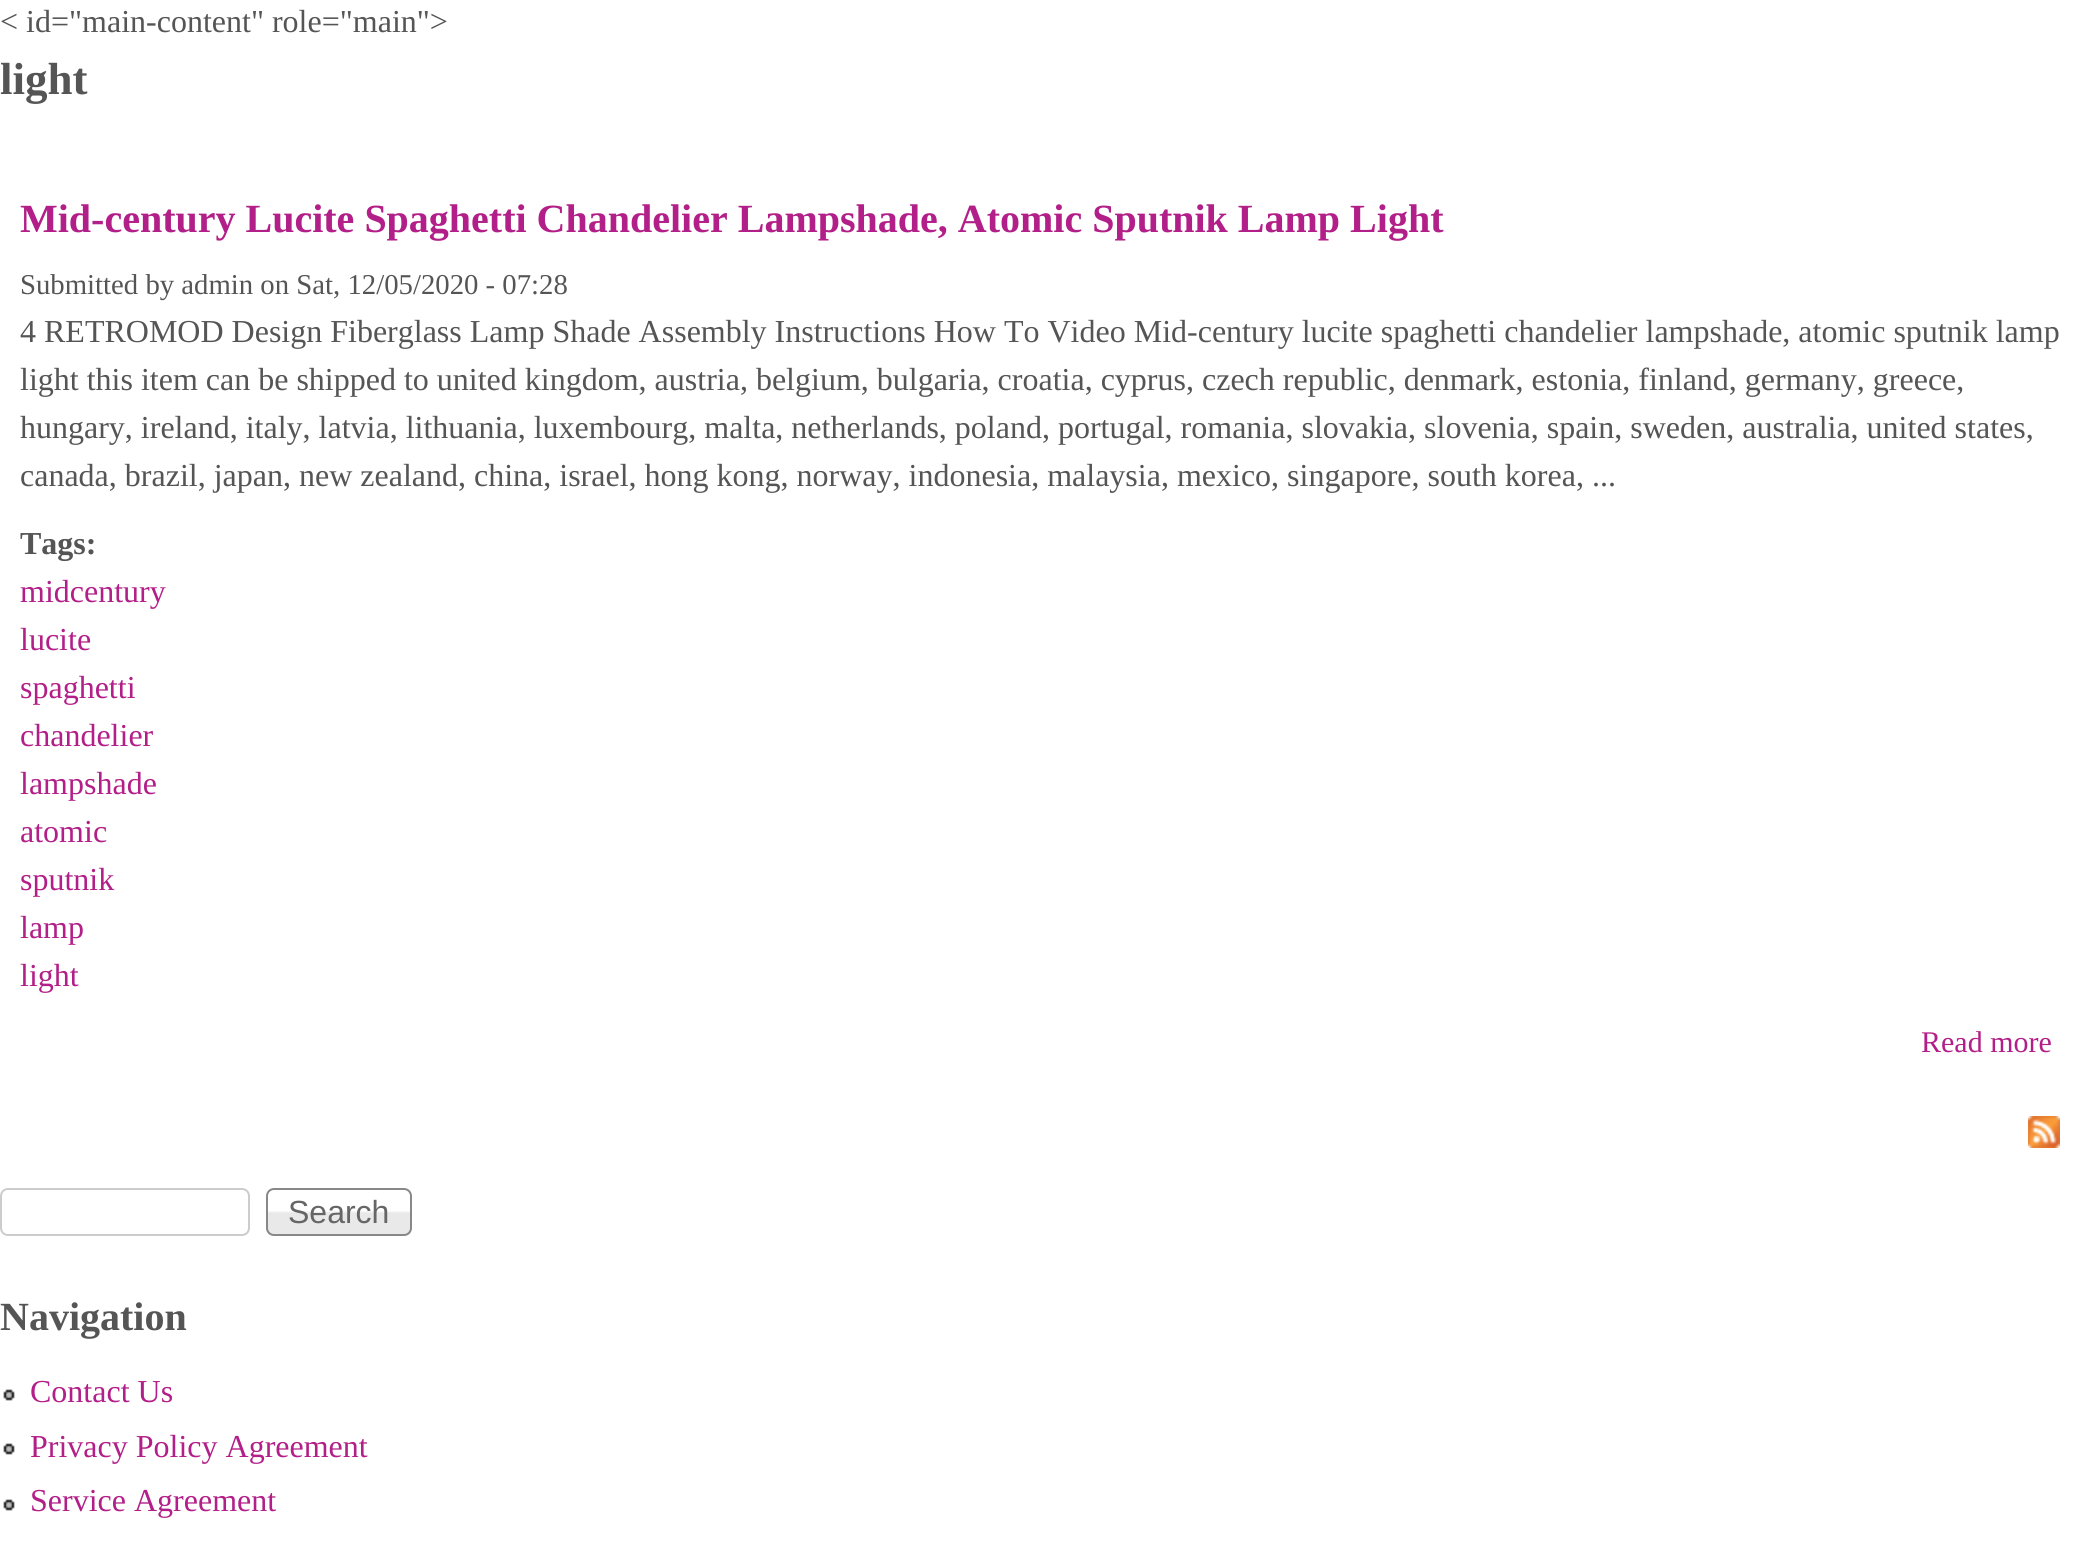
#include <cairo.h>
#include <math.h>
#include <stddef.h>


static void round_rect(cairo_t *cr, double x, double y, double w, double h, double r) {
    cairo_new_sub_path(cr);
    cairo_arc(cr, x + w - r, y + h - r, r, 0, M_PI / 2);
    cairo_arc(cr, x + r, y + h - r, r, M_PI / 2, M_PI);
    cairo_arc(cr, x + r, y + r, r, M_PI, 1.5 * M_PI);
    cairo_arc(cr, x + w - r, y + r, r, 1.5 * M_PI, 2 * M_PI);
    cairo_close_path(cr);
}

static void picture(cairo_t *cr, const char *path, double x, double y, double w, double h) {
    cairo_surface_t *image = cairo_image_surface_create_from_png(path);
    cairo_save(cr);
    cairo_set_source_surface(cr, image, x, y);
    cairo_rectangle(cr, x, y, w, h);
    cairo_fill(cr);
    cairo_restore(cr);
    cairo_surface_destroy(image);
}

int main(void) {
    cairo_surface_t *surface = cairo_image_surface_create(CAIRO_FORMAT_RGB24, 2080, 1553);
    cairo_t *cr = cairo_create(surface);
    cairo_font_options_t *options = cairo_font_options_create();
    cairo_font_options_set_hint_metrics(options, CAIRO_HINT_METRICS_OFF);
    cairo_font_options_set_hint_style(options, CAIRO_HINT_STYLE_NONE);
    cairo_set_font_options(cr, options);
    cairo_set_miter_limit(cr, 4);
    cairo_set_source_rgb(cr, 1, 1, 1);
    cairo_paint(cr);
    cairo_select_font_face(cr, "Liberation Serif", CAIRO_FONT_SLANT_NORMAL, CAIRO_FONT_WEIGHT_NORMAL);
    cairo_set_font_size(cr, 32);
    cairo_set_source_rgb(cr, 0.333, 0.333, 0.333);
    cairo_move_to(cr, 0, 32);
    cairo_show_text(cr, "< id=\"main-content\" role=\"main\">");
    cairo_select_font_face(cr, "Liberation Serif", CAIRO_FONT_SLANT_NORMAL, CAIRO_FONT_WEIGHT_BOLD);
    cairo_set_font_size(cr, 45);
    cairo_move_to(cr, 0, 94);
    cairo_show_text(cr, "light");
    cairo_set_font_size(cr, 40);
    cairo_set_source_rgb(cr, 0.698, 0.122, 0.533);
    cairo_move_to(cr, 20, 232);
    cairo_show_text(cr, "Mid-century Lucite Spaghetti Chandelier Lampshade, Atomic Sputnik Lamp Light");
    cairo_select_font_face(cr, "Liberation Serif", CAIRO_FONT_SLANT_NORMAL, CAIRO_FONT_WEIGHT_NORMAL);
    cairo_set_font_size(cr, 28.75);
    cairo_set_source_rgb(cr, 0.333, 0.333, 0.333);
    cairo_move_to(cr, 20, 294);
    cairo_show_text(cr, "Submitted by admin on Sat, 12/05/2020 - 07:28");
    cairo_set_font_size(cr, 32);
    cairo_move_to(cr, 20, 342);
    cairo_show_text(cr, "4 RETROMOD Design Fiberglass Lamp Shade Assembly Instructions How To Video Mid-century lucite spaghetti chandelier lampshade, atomic sputnik lamp");
    cairo_move_to(cr, 20, 390);
    cairo_show_text(cr, "light this item can be shipped to united kingdom, austria, belgium, bulgaria, croatia, cyprus, czech republic, denmark, estonia, finland, germany, greece,");
    cairo_move_to(cr, 20, 438);
    cairo_show_text(cr, "hungary, ireland, italy, latvia, lithuania, luxembourg, malta, netherlands, poland, portugal, romania, slovakia, slovenia, spain, sweden, australia, united states,");
    cairo_move_to(cr, 20, 486);
    cairo_show_text(cr, "canada, brazil, japan, new zealand, china, israel, hong kong, norway, indonesia, malaysia, mexico, singapore, south korea, ...");
    cairo_select_font_face(cr, "Liberation Serif", CAIRO_FONT_SLANT_NORMAL, CAIRO_FONT_WEIGHT_BOLD);
    cairo_move_to(cr, 20, 554);
    cairo_show_text(cr, "Tags:");
    cairo_select_font_face(cr, "Liberation Serif", CAIRO_FONT_SLANT_NORMAL, CAIRO_FONT_WEIGHT_NORMAL);
    cairo_set_source_rgb(cr, 0.698, 0.122, 0.533);
    cairo_move_to(cr, 20, 602);
    cairo_show_text(cr, "midcentury");
    cairo_move_to(cr, 20, 650);
    cairo_show_text(cr, "lucite");
    cairo_move_to(cr, 20, 698);
    cairo_show_text(cr, "spaghetti");
    cairo_move_to(cr, 20, 746);
    cairo_show_text(cr, "chandelier");
    cairo_move_to(cr, 20, 794);
    cairo_show_text(cr, "lampshade");
    cairo_move_to(cr, 20, 842);
    cairo_show_text(cr, "atomic");
    cairo_move_to(cr, 20, 890);
    cairo_show_text(cr, "sputnik");
    cairo_move_to(cr, 20, 938);
    cairo_show_text(cr, "lamp");
    cairo_move_to(cr, 20, 986);
    cairo_show_text(cr, "light");
    cairo_set_font_size(cr, 30);
    cairo_move_to(cr, 1921, 1052);
    cairo_show_text(cr, "Read more");
    picture(cr, "img1.png", 2028, 1116, 32, 32);
    round_rect(cr, 1, 1189, 248, 46, 7);
    cairo_set_source_rgb(cr, 0.8, 0.8, 0.8);
    cairo_stroke(cr);
    picture(cr, "img2.png", 266, 1211, 146, 25);
    round_rect(cr, 267, 1189, 144, 46, 7);
    cairo_set_source_rgb(cr, 0.533, 0.533, 0.533);
    cairo_stroke(cr);
    cairo_select_font_face(cr, "Liberation Sans", CAIRO_FONT_SLANT_NORMAL, CAIRO_FONT_WEIGHT_NORMAL);
    cairo_set_font_size(cr, 32);
    cairo_set_source_rgb(cr, 0.4, 0.4, 0.4);
    cairo_move_to(cr, 288, 1223);
    cairo_show_text(cr, "Search");
    cairo_select_font_face(cr, "Liberation Serif", CAIRO_FONT_SLANT_NORMAL, CAIRO_FONT_WEIGHT_BOLD);
    cairo_set_font_size(cr, 40);
    cairo_set_source_rgb(cr, 0.333, 0.333, 0.333);
    cairo_move_to(cr, 0, 1330);
    cairo_show_text(cr, "Navigation");
    picture(cr, "img3.png", 3, 1389, 12, 12);
    cairo_select_font_face(cr, "Liberation Serif", CAIRO_FONT_SLANT_NORMAL, CAIRO_FONT_WEIGHT_NORMAL);
    cairo_set_font_size(cr, 32);
    cairo_set_source_rgb(cr, 0.698, 0.122, 0.533);
    cairo_move_to(cr, 30, 1402);
    cairo_show_text(cr, "Contact Us");
    picture(cr, "img3.png", 3, 1443, 12, 12);
    cairo_move_to(cr, 30, 1457);
    cairo_show_text(cr, "Privacy Policy Agreement");
    picture(cr, "img3.png", 3, 1499, 12, 12);
    cairo_move_to(cr, 30, 1511);
    cairo_show_text(cr, "Service Agreement");
    cairo_surface_write_to_png(surface, "page.png");
    cairo_font_options_destroy(options);
    cairo_destroy(cr);
    cairo_surface_destroy(surface);
    return 0;
}
